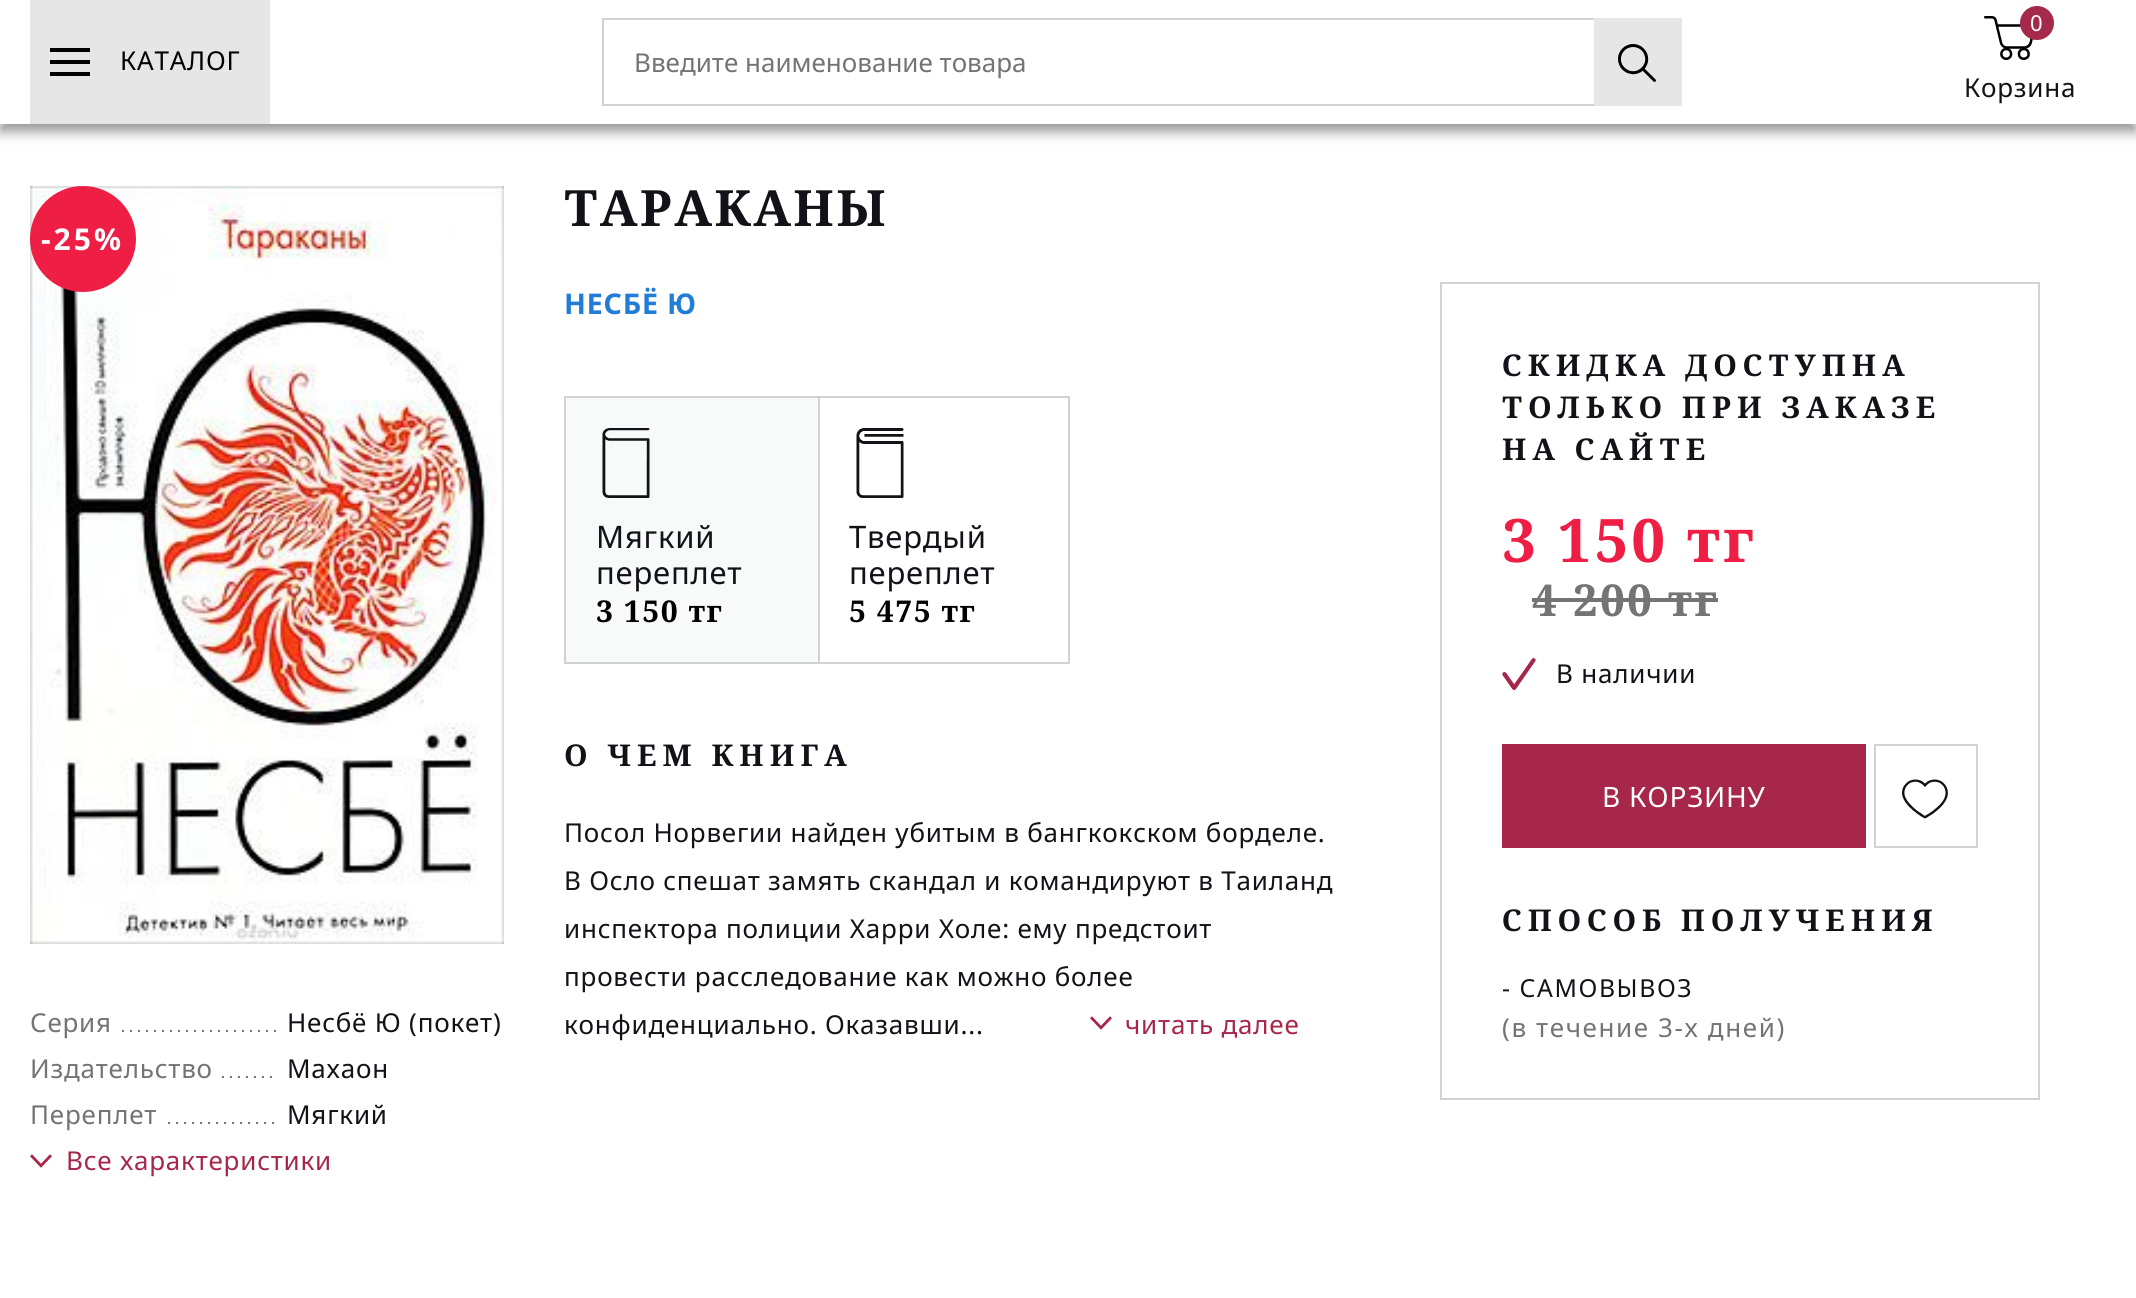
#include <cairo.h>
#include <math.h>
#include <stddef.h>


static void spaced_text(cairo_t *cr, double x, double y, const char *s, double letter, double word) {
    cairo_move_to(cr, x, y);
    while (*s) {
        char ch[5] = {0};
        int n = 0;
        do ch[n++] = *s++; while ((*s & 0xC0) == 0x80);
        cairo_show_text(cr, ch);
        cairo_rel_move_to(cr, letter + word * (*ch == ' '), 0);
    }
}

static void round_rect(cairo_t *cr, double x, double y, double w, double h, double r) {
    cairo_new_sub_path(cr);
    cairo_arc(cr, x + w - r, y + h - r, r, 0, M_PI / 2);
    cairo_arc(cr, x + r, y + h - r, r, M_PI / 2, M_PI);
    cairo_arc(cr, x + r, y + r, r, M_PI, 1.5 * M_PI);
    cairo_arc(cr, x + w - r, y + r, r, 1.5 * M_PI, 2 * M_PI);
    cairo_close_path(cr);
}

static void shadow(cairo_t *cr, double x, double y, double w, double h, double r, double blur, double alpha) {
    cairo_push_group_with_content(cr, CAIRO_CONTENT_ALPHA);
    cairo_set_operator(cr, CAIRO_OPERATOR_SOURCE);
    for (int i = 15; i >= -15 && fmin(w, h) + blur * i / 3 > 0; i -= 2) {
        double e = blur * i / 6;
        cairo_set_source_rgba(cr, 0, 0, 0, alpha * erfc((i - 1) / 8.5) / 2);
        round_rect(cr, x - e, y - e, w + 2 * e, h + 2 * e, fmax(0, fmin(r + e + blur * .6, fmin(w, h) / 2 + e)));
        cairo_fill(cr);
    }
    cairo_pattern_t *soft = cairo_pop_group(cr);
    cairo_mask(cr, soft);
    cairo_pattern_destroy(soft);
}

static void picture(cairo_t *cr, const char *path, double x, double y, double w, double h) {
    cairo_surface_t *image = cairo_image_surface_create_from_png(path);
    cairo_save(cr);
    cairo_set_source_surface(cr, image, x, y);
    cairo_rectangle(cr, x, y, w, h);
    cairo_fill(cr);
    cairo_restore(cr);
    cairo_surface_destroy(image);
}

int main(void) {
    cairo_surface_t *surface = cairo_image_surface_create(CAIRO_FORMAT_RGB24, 2136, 1298);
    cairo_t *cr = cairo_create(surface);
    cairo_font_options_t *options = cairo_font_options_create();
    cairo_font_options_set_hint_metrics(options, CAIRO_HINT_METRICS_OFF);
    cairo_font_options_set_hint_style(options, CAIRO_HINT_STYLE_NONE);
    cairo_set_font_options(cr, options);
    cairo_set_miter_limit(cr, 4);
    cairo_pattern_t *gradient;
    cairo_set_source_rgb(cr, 1, 1, 1);
    cairo_paint(cr);
    cairo_set_source_rgb(cr, 0, 0, 0);
    shadow(cr, 0, 8, 2136, 124, 0, 6, 0.4);
    cairo_set_source_rgb(cr, 1, 1, 1);
    cairo_rectangle(cr, 0, 0, 2136, 124);
    cairo_fill(cr);
    cairo_set_source_rgb(cr, 0.902, 0.902, 0.902);
    cairo_rectangle(cr, 30, 0, 240, 124);
    cairo_fill(cr);
    cairo_set_source_rgb(cr, 0, 0, 0);
    cairo_rectangle(cr, 50, 60, 40, 4);
    cairo_fill(cr);
    cairo_rectangle(cr, 50, 48, 40, 4);
    cairo_fill(cr);
    cairo_rectangle(cr, 50, 72, 40, 4);
    cairo_fill(cr);
    cairo_select_font_face(cr, "Noto Sans", CAIRO_FONT_SLANT_NORMAL, CAIRO_FONT_WEIGHT_NORMAL);
    cairo_set_font_size(cr, 26);
    spaced_text(cr, 120, 70, "КАТАЛОГ", 0.78, 0);
    cairo_rectangle(cr, 603, 19, 992, 86);
    cairo_set_source_rgb(cr, 0.812, 0.827, 0.835);
    cairo_stroke(cr);
    cairo_set_source_rgb(cr, 0.455, 0.455, 0.455);
    cairo_move_to(cr, 634, 72);
    cairo_show_text(cr, "Введите наименование товара");
    cairo_set_source_rgb(cr, 0.902, 0.902, 0.902);
    cairo_rectangle(cr, 1594, 18, 88, 88);
    cairo_fill(cr);
    picture(cr, "img1.png", 1618, 44, 38, 38);
    picture(cr, "img2.png", 1984, 16, 49, 44);
    cairo_set_source_rgb(cr, 0.647, 0.161, 0.294);
    cairo_arc(cr, 2037, 23, 17, 0, 2 * M_PI);
    cairo_fill(cr);
    cairo_set_font_size(cr, 22);
    cairo_set_source_rgb(cr, 1, 1, 1);
    spaced_text(cr, 2030, 31, "0", 0.78, 0);
    cairo_set_font_size(cr, 26);
    cairo_set_source_rgb(cr, 0.071, 0.075, 0.098);
    spaced_text(cr, 1964, 97, "Корзина", 0.78, 0);
    picture(cr, "img3.png", 30, 186, 474, 758);
    cairo_set_source_rgb(cr, 0.933, 0.118, 0.271);
    cairo_arc(cr, 83, 239, 53, 0, 2 * M_PI);
    cairo_fill(cr);
    cairo_select_font_face(cr, "Noto Sans", CAIRO_FONT_SLANT_NORMAL, CAIRO_FONT_WEIGHT_BOLD);
    cairo_set_font_size(cr, 30);
    cairo_set_source_rgb(cr, 1, 1, 1);
    spaced_text(cr, 41, 250, "-25%", 3, 0);
    cairo_select_font_face(cr, "Noto Sans", CAIRO_FONT_SLANT_NORMAL, CAIRO_FONT_WEIGHT_NORMAL);
    cairo_set_font_size(cr, 26);
    cairo_set_source_rgb(cr, 0.455, 0.455, 0.455);
    spaced_text(cr, 30, 1032, "Серия", 0.78, 0);
    gradient = cairo_pattern_create_linear(122, 1031, 130, 1031);
    cairo_pattern_add_color_stop_rgba(gradient, 0, 0.455, 0.455, 0.455, 1);
    cairo_pattern_add_color_stop_rgba(gradient, 0.25, 0.455, 0.455, 0.455, 1);
    cairo_pattern_add_color_stop_rgba(gradient, 0.25, 1, 1, 1, 1);
    cairo_pattern_add_color_stop_rgba(gradient, 1, 1, 1, 1, 1);
    cairo_set_source(cr, gradient);
    cairo_pattern_destroy(gradient);
    cairo_rectangle(cr, 122, 1030, 8, 2);
    cairo_fill(cr);
    gradient = cairo_pattern_create_linear(130, 1031, 138, 1031);
    cairo_pattern_add_color_stop_rgba(gradient, 0, 0.455, 0.455, 0.455, 1);
    cairo_pattern_add_color_stop_rgba(gradient, 0.25, 0.455, 0.455, 0.455, 1);
    cairo_pattern_add_color_stop_rgba(gradient, 0.25, 1, 1, 1, 1);
    cairo_pattern_add_color_stop_rgba(gradient, 1, 1, 1, 1, 1);
    cairo_set_source(cr, gradient);
    cairo_pattern_destroy(gradient);
    cairo_rectangle(cr, 130, 1030, 8, 2);
    cairo_fill(cr);
    gradient = cairo_pattern_create_linear(138, 1031, 146, 1031);
    cairo_pattern_add_color_stop_rgba(gradient, 0, 0.455, 0.455, 0.455, 1);
    cairo_pattern_add_color_stop_rgba(gradient, 0.25, 0.455, 0.455, 0.455, 1);
    cairo_pattern_add_color_stop_rgba(gradient, 0.25, 1, 1, 1, 1);
    cairo_pattern_add_color_stop_rgba(gradient, 1, 1, 1, 1, 1);
    cairo_set_source(cr, gradient);
    cairo_pattern_destroy(gradient);
    cairo_rectangle(cr, 138, 1030, 8, 2);
    cairo_fill(cr);
    gradient = cairo_pattern_create_linear(146, 1031, 154, 1031);
    cairo_pattern_add_color_stop_rgba(gradient, 0, 0.455, 0.455, 0.455, 1);
    cairo_pattern_add_color_stop_rgba(gradient, 0.25, 0.455, 0.455, 0.455, 1);
    cairo_pattern_add_color_stop_rgba(gradient, 0.25, 1, 1, 1, 1);
    cairo_pattern_add_color_stop_rgba(gradient, 1, 1, 1, 1, 1);
    cairo_set_source(cr, gradient);
    cairo_pattern_destroy(gradient);
    cairo_rectangle(cr, 146, 1030, 8, 2);
    cairo_fill(cr);
    gradient = cairo_pattern_create_linear(154, 1031, 162, 1031);
    cairo_pattern_add_color_stop_rgba(gradient, 0, 0.455, 0.455, 0.455, 1);
    cairo_pattern_add_color_stop_rgba(gradient, 0.25, 0.455, 0.455, 0.455, 1);
    cairo_pattern_add_color_stop_rgba(gradient, 0.25, 1, 1, 1, 1);
    cairo_pattern_add_color_stop_rgba(gradient, 1, 1, 1, 1, 1);
    cairo_set_source(cr, gradient);
    cairo_pattern_destroy(gradient);
    cairo_rectangle(cr, 154, 1030, 8, 2);
    cairo_fill(cr);
    gradient = cairo_pattern_create_linear(162, 1031, 170, 1031);
    cairo_pattern_add_color_stop_rgba(gradient, 0, 0.455, 0.455, 0.455, 1);
    cairo_pattern_add_color_stop_rgba(gradient, 0.25, 0.455, 0.455, 0.455, 1);
    cairo_pattern_add_color_stop_rgba(gradient, 0.25, 1, 1, 1, 1);
    cairo_pattern_add_color_stop_rgba(gradient, 1, 1, 1, 1, 1);
    cairo_set_source(cr, gradient);
    cairo_pattern_destroy(gradient);
    cairo_rectangle(cr, 162, 1030, 8, 2);
    cairo_fill(cr);
    gradient = cairo_pattern_create_linear(170, 1031, 178, 1031);
    cairo_pattern_add_color_stop_rgba(gradient, 0, 0.455, 0.455, 0.455, 1);
    cairo_pattern_add_color_stop_rgba(gradient, 0.25, 0.455, 0.455, 0.455, 1);
    cairo_pattern_add_color_stop_rgba(gradient, 0.25, 1, 1, 1, 1);
    cairo_pattern_add_color_stop_rgba(gradient, 1, 1, 1, 1, 1);
    cairo_set_source(cr, gradient);
    cairo_pattern_destroy(gradient);
    cairo_rectangle(cr, 170, 1030, 8, 2);
    cairo_fill(cr);
    gradient = cairo_pattern_create_linear(178, 1031, 186, 1031);
    cairo_pattern_add_color_stop_rgba(gradient, 0, 0.455, 0.455, 0.455, 1);
    cairo_pattern_add_color_stop_rgba(gradient, 0.25, 0.455, 0.455, 0.455, 1);
    cairo_pattern_add_color_stop_rgba(gradient, 0.25, 1, 1, 1, 1);
    cairo_pattern_add_color_stop_rgba(gradient, 1, 1, 1, 1, 1);
    cairo_set_source(cr, gradient);
    cairo_pattern_destroy(gradient);
    cairo_rectangle(cr, 178, 1030, 8, 2);
    cairo_fill(cr);
    gradient = cairo_pattern_create_linear(186, 1031, 194, 1031);
    cairo_pattern_add_color_stop_rgba(gradient, 0, 0.455, 0.455, 0.455, 1);
    cairo_pattern_add_color_stop_rgba(gradient, 0.25, 0.455, 0.455, 0.455, 1);
    cairo_pattern_add_color_stop_rgba(gradient, 0.25, 1, 1, 1, 1);
    cairo_pattern_add_color_stop_rgba(gradient, 1, 1, 1, 1, 1);
    cairo_set_source(cr, gradient);
    cairo_pattern_destroy(gradient);
    cairo_rectangle(cr, 186, 1030, 8, 2);
    cairo_fill(cr);
    gradient = cairo_pattern_create_linear(194, 1031, 202, 1031);
    cairo_pattern_add_color_stop_rgba(gradient, 0, 0.455, 0.455, 0.455, 1);
    cairo_pattern_add_color_stop_rgba(gradient, 0.25, 0.455, 0.455, 0.455, 1);
    cairo_pattern_add_color_stop_rgba(gradient, 0.25, 1, 1, 1, 1);
    cairo_pattern_add_color_stop_rgba(gradient, 1, 1, 1, 1, 1);
    cairo_set_source(cr, gradient);
    cairo_pattern_destroy(gradient);
    cairo_rectangle(cr, 194, 1030, 8, 2);
    cairo_fill(cr);
    gradient = cairo_pattern_create_linear(202, 1031, 210, 1031);
    cairo_pattern_add_color_stop_rgba(gradient, 0, 0.455, 0.455, 0.455, 1);
    cairo_pattern_add_color_stop_rgba(gradient, 0.25, 0.455, 0.455, 0.455, 1);
    cairo_pattern_add_color_stop_rgba(gradient, 0.25, 1, 1, 1, 1);
    cairo_pattern_add_color_stop_rgba(gradient, 1, 1, 1, 1, 1);
    cairo_set_source(cr, gradient);
    cairo_pattern_destroy(gradient);
    cairo_rectangle(cr, 202, 1030, 8, 2);
    cairo_fill(cr);
    gradient = cairo_pattern_create_linear(210, 1031, 218, 1031);
    cairo_pattern_add_color_stop_rgba(gradient, 0, 0.455, 0.455, 0.455, 1);
    cairo_pattern_add_color_stop_rgba(gradient, 0.25, 0.455, 0.455, 0.455, 1);
    cairo_pattern_add_color_stop_rgba(gradient, 0.25, 1, 1, 1, 1);
    cairo_pattern_add_color_stop_rgba(gradient, 1, 1, 1, 1, 1);
    cairo_set_source(cr, gradient);
    cairo_pattern_destroy(gradient);
    cairo_rectangle(cr, 210, 1030, 8, 2);
    cairo_fill(cr);
    gradient = cairo_pattern_create_linear(218, 1031, 226, 1031);
    cairo_pattern_add_color_stop_rgba(gradient, 0, 0.455, 0.455, 0.455, 1);
    cairo_pattern_add_color_stop_rgba(gradient, 0.25, 0.455, 0.455, 0.455, 1);
    cairo_pattern_add_color_stop_rgba(gradient, 0.25, 1, 1, 1, 1);
    cairo_pattern_add_color_stop_rgba(gradient, 1, 1, 1, 1, 1);
    cairo_set_source(cr, gradient);
    cairo_pattern_destroy(gradient);
    cairo_rectangle(cr, 218, 1030, 8, 2);
    cairo_fill(cr);
    gradient = cairo_pattern_create_linear(226, 1031, 234, 1031);
    cairo_pattern_add_color_stop_rgba(gradient, 0, 0.455, 0.455, 0.455, 1);
    cairo_pattern_add_color_stop_rgba(gradient, 0.25, 0.455, 0.455, 0.455, 1);
    cairo_pattern_add_color_stop_rgba(gradient, 0.25, 1, 1, 1, 1);
    cairo_pattern_add_color_stop_rgba(gradient, 1, 1, 1, 1, 1);
    cairo_set_source(cr, gradient);
    cairo_pattern_destroy(gradient);
    cairo_rectangle(cr, 226, 1030, 8, 2);
    cairo_fill(cr);
    gradient = cairo_pattern_create_linear(234, 1031, 242, 1031);
    cairo_pattern_add_color_stop_rgba(gradient, 0, 0.455, 0.455, 0.455, 1);
    cairo_pattern_add_color_stop_rgba(gradient, 0.25, 0.455, 0.455, 0.455, 1);
    cairo_pattern_add_color_stop_rgba(gradient, 0.25, 1, 1, 1, 1);
    cairo_pattern_add_color_stop_rgba(gradient, 1, 1, 1, 1, 1);
    cairo_set_source(cr, gradient);
    cairo_pattern_destroy(gradient);
    cairo_rectangle(cr, 234, 1030, 8, 2);
    cairo_fill(cr);
    gradient = cairo_pattern_create_linear(242, 1031, 250, 1031);
    cairo_pattern_add_color_stop_rgba(gradient, 0, 0.455, 0.455, 0.455, 1);
    cairo_pattern_add_color_stop_rgba(gradient, 0.25, 0.455, 0.455, 0.455, 1);
    cairo_pattern_add_color_stop_rgba(gradient, 0.25, 1, 1, 1, 1);
    cairo_pattern_add_color_stop_rgba(gradient, 1, 1, 1, 1, 1);
    cairo_set_source(cr, gradient);
    cairo_pattern_destroy(gradient);
    cairo_rectangle(cr, 242, 1030, 8, 2);
    cairo_fill(cr);
    gradient = cairo_pattern_create_linear(250, 1031, 258, 1031);
    cairo_pattern_add_color_stop_rgba(gradient, 0, 0.455, 0.455, 0.455, 1);
    cairo_pattern_add_color_stop_rgba(gradient, 0.25, 0.455, 0.455, 0.455, 1);
    cairo_pattern_add_color_stop_rgba(gradient, 0.25, 1, 1, 1, 1);
    cairo_pattern_add_color_stop_rgba(gradient, 1, 1, 1, 1, 1);
    cairo_set_source(cr, gradient);
    cairo_pattern_destroy(gradient);
    cairo_rectangle(cr, 250, 1030, 8, 2);
    cairo_fill(cr);
    gradient = cairo_pattern_create_linear(258, 1031, 266, 1031);
    cairo_pattern_add_color_stop_rgba(gradient, 0, 0.455, 0.455, 0.455, 1);
    cairo_pattern_add_color_stop_rgba(gradient, 0.25, 0.455, 0.455, 0.455, 1);
    cairo_pattern_add_color_stop_rgba(gradient, 0.25, 1, 1, 1, 1);
    cairo_pattern_add_color_stop_rgba(gradient, 1, 1, 1, 1, 1);
    cairo_set_source(cr, gradient);
    cairo_pattern_destroy(gradient);
    cairo_rectangle(cr, 258, 1030, 8, 2);
    cairo_fill(cr);
    gradient = cairo_pattern_create_linear(266, 1031, 274, 1031);
    cairo_pattern_add_color_stop_rgba(gradient, 0, 0.455, 0.455, 0.455, 1);
    cairo_pattern_add_color_stop_rgba(gradient, 0.25, 0.455, 0.455, 0.455, 1);
    cairo_pattern_add_color_stop_rgba(gradient, 0.25, 1, 1, 1, 1);
    cairo_pattern_add_color_stop_rgba(gradient, 1, 1, 1, 1, 1);
    cairo_set_source(cr, gradient);
    cairo_pattern_destroy(gradient);
    cairo_rectangle(cr, 266, 1030, 8, 2);
    cairo_fill(cr);
    gradient = cairo_pattern_create_linear(274, 1031, 282, 1031);
    cairo_pattern_add_color_stop_rgba(gradient, 0, 0.455, 0.455, 0.455, 1);
    cairo_pattern_add_color_stop_rgba(gradient, 0.25, 0.455, 0.455, 0.455, 1);
    cairo_pattern_add_color_stop_rgba(gradient, 0.25, 1, 1, 1, 1);
    cairo_pattern_add_color_stop_rgba(gradient, 1, 1, 1, 1, 1);
    cairo_set_source(cr, gradient);
    cairo_pattern_destroy(gradient);
    cairo_rectangle(cr, 274, 1030, 4, 2);
    cairo_fill(cr);
    cairo_set_source_rgb(cr, 0.071, 0.075, 0.098);
    spaced_text(cr, 287, 1032, "Несбё Ю (покет)", 0.78, 0);
    cairo_set_source_rgb(cr, 0.455, 0.455, 0.455);
    spaced_text(cr, 30, 1078, "Издательство", 0.78, 0);
    gradient = cairo_pattern_create_linear(222, 1077, 230, 1077);
    cairo_pattern_add_color_stop_rgba(gradient, 0, 0.455, 0.455, 0.455, 1);
    cairo_pattern_add_color_stop_rgba(gradient, 0.25, 0.455, 0.455, 0.455, 1);
    cairo_pattern_add_color_stop_rgba(gradient, 0.25, 1, 1, 1, 1);
    cairo_pattern_add_color_stop_rgba(gradient, 1, 1, 1, 1, 1);
    cairo_set_source(cr, gradient);
    cairo_pattern_destroy(gradient);
    cairo_rectangle(cr, 222, 1076, 8, 2);
    cairo_fill(cr);
    gradient = cairo_pattern_create_linear(230, 1077, 238, 1077);
    cairo_pattern_add_color_stop_rgba(gradient, 0, 0.455, 0.455, 0.455, 1);
    cairo_pattern_add_color_stop_rgba(gradient, 0.25, 0.455, 0.455, 0.455, 1);
    cairo_pattern_add_color_stop_rgba(gradient, 0.25, 1, 1, 1, 1);
    cairo_pattern_add_color_stop_rgba(gradient, 1, 1, 1, 1, 1);
    cairo_set_source(cr, gradient);
    cairo_pattern_destroy(gradient);
    cairo_rectangle(cr, 230, 1076, 8, 2);
    cairo_fill(cr);
    gradient = cairo_pattern_create_linear(238, 1077, 246, 1077);
    cairo_pattern_add_color_stop_rgba(gradient, 0, 0.455, 0.455, 0.455, 1);
    cairo_pattern_add_color_stop_rgba(gradient, 0.25, 0.455, 0.455, 0.455, 1);
    cairo_pattern_add_color_stop_rgba(gradient, 0.25, 1, 1, 1, 1);
    cairo_pattern_add_color_stop_rgba(gradient, 1, 1, 1, 1, 1);
    cairo_set_source(cr, gradient);
    cairo_pattern_destroy(gradient);
    cairo_rectangle(cr, 238, 1076, 8, 2);
    cairo_fill(cr);
    gradient = cairo_pattern_create_linear(246, 1077, 254, 1077);
    cairo_pattern_add_color_stop_rgba(gradient, 0, 0.455, 0.455, 0.455, 1);
    cairo_pattern_add_color_stop_rgba(gradient, 0.25, 0.455, 0.455, 0.455, 1);
    cairo_pattern_add_color_stop_rgba(gradient, 0.25, 1, 1, 1, 1);
    cairo_pattern_add_color_stop_rgba(gradient, 1, 1, 1, 1, 1);
    cairo_set_source(cr, gradient);
    cairo_pattern_destroy(gradient);
    cairo_rectangle(cr, 246, 1076, 8, 2);
    cairo_fill(cr);
    gradient = cairo_pattern_create_linear(254, 1077, 262, 1077);
    cairo_pattern_add_color_stop_rgba(gradient, 0, 0.455, 0.455, 0.455, 1);
    cairo_pattern_add_color_stop_rgba(gradient, 0.25, 0.455, 0.455, 0.455, 1);
    cairo_pattern_add_color_stop_rgba(gradient, 0.25, 1, 1, 1, 1);
    cairo_pattern_add_color_stop_rgba(gradient, 1, 1, 1, 1, 1);
    cairo_set_source(cr, gradient);
    cairo_pattern_destroy(gradient);
    cairo_rectangle(cr, 254, 1076, 8, 2);
    cairo_fill(cr);
    gradient = cairo_pattern_create_linear(262, 1077, 270, 1077);
    cairo_pattern_add_color_stop_rgba(gradient, 0, 0.455, 0.455, 0.455, 1);
    cairo_pattern_add_color_stop_rgba(gradient, 0.25, 0.455, 0.455, 0.455, 1);
    cairo_pattern_add_color_stop_rgba(gradient, 0.25, 1, 1, 1, 1);
    cairo_pattern_add_color_stop_rgba(gradient, 1, 1, 1, 1, 1);
    cairo_set_source(cr, gradient);
    cairo_pattern_destroy(gradient);
    cairo_rectangle(cr, 262, 1076, 8, 2);
    cairo_fill(cr);
    gradient = cairo_pattern_create_linear(270, 1077, 278, 1077);
    cairo_pattern_add_color_stop_rgba(gradient, 0, 0.455, 0.455, 0.455, 1);
    cairo_pattern_add_color_stop_rgba(gradient, 0.25, 0.455, 0.455, 0.455, 1);
    cairo_pattern_add_color_stop_rgba(gradient, 0.25, 1, 1, 1, 1);
    cairo_pattern_add_color_stop_rgba(gradient, 1, 1, 1, 1, 1);
    cairo_set_source(cr, gradient);
    cairo_pattern_destroy(gradient);
    cairo_rectangle(cr, 270, 1076, 8, 2);
    cairo_fill(cr);
    cairo_set_source_rgb(cr, 0.071, 0.075, 0.098);
    spaced_text(cr, 287, 1078, "Махаон", 0.78, 0);
    cairo_set_source_rgb(cr, 0.455, 0.455, 0.455);
    spaced_text(cr, 30, 1124, "Переплет", 0.78, 0);
    gradient = cairo_pattern_create_linear(168, 1123, 176, 1123);
    cairo_pattern_add_color_stop_rgba(gradient, 0, 0.455, 0.455, 0.455, 1);
    cairo_pattern_add_color_stop_rgba(gradient, 0.25, 0.455, 0.455, 0.455, 1);
    cairo_pattern_add_color_stop_rgba(gradient, 0.25, 1, 1, 1, 1);
    cairo_pattern_add_color_stop_rgba(gradient, 1, 1, 1, 1, 1);
    cairo_set_source(cr, gradient);
    cairo_pattern_destroy(gradient);
    cairo_rectangle(cr, 168, 1122, 8, 2);
    cairo_fill(cr);
    gradient = cairo_pattern_create_linear(176, 1123, 184, 1123);
    cairo_pattern_add_color_stop_rgba(gradient, 0, 0.455, 0.455, 0.455, 1);
    cairo_pattern_add_color_stop_rgba(gradient, 0.25, 0.455, 0.455, 0.455, 1);
    cairo_pattern_add_color_stop_rgba(gradient, 0.25, 1, 1, 1, 1);
    cairo_pattern_add_color_stop_rgba(gradient, 1, 1, 1, 1, 1);
    cairo_set_source(cr, gradient);
    cairo_pattern_destroy(gradient);
    cairo_rectangle(cr, 176, 1122, 8, 2);
    cairo_fill(cr);
    gradient = cairo_pattern_create_linear(184, 1123, 192, 1123);
    cairo_pattern_add_color_stop_rgba(gradient, 0, 0.455, 0.455, 0.455, 1);
    cairo_pattern_add_color_stop_rgba(gradient, 0.25, 0.455, 0.455, 0.455, 1);
    cairo_pattern_add_color_stop_rgba(gradient, 0.25, 1, 1, 1, 1);
    cairo_pattern_add_color_stop_rgba(gradient, 1, 1, 1, 1, 1);
    cairo_set_source(cr, gradient);
    cairo_pattern_destroy(gradient);
    cairo_rectangle(cr, 184, 1122, 8, 2);
    cairo_fill(cr);
    gradient = cairo_pattern_create_linear(192, 1123, 200, 1123);
    cairo_pattern_add_color_stop_rgba(gradient, 0, 0.455, 0.455, 0.455, 1);
    cairo_pattern_add_color_stop_rgba(gradient, 0.25, 0.455, 0.455, 0.455, 1);
    cairo_pattern_add_color_stop_rgba(gradient, 0.25, 1, 1, 1, 1);
    cairo_pattern_add_color_stop_rgba(gradient, 1, 1, 1, 1, 1);
    cairo_set_source(cr, gradient);
    cairo_pattern_destroy(gradient);
    cairo_rectangle(cr, 192, 1122, 8, 2);
    cairo_fill(cr);
    gradient = cairo_pattern_create_linear(200, 1123, 208, 1123);
    cairo_pattern_add_color_stop_rgba(gradient, 0, 0.455, 0.455, 0.455, 1);
    cairo_pattern_add_color_stop_rgba(gradient, 0.25, 0.455, 0.455, 0.455, 1);
    cairo_pattern_add_color_stop_rgba(gradient, 0.25, 1, 1, 1, 1);
    cairo_pattern_add_color_stop_rgba(gradient, 1, 1, 1, 1, 1);
    cairo_set_source(cr, gradient);
    cairo_pattern_destroy(gradient);
    cairo_rectangle(cr, 200, 1122, 8, 2);
    cairo_fill(cr);
    gradient = cairo_pattern_create_linear(208, 1123, 216, 1123);
    cairo_pattern_add_color_stop_rgba(gradient, 0, 0.455, 0.455, 0.455, 1);
    cairo_pattern_add_color_stop_rgba(gradient, 0.25, 0.455, 0.455, 0.455, 1);
    cairo_pattern_add_color_stop_rgba(gradient, 0.25, 1, 1, 1, 1);
    cairo_pattern_add_color_stop_rgba(gradient, 1, 1, 1, 1, 1);
    cairo_set_source(cr, gradient);
    cairo_pattern_destroy(gradient);
    cairo_rectangle(cr, 208, 1122, 8, 2);
    cairo_fill(cr);
    gradient = cairo_pattern_create_linear(216, 1123, 224, 1123);
    cairo_pattern_add_color_stop_rgba(gradient, 0, 0.455, 0.455, 0.455, 1);
    cairo_pattern_add_color_stop_rgba(gradient, 0.25, 0.455, 0.455, 0.455, 1);
    cairo_pattern_add_color_stop_rgba(gradient, 0.25, 1, 1, 1, 1);
    cairo_pattern_add_color_stop_rgba(gradient, 1, 1, 1, 1, 1);
    cairo_set_source(cr, gradient);
    cairo_pattern_destroy(gradient);
    cairo_rectangle(cr, 216, 1122, 8, 2);
    cairo_fill(cr);
    gradient = cairo_pattern_create_linear(224, 1123, 232, 1123);
    cairo_pattern_add_color_stop_rgba(gradient, 0, 0.455, 0.455, 0.455, 1);
    cairo_pattern_add_color_stop_rgba(gradient, 0.25, 0.455, 0.455, 0.455, 1);
    cairo_pattern_add_color_stop_rgba(gradient, 0.25, 1, 1, 1, 1);
    cairo_pattern_add_color_stop_rgba(gradient, 1, 1, 1, 1, 1);
    cairo_set_source(cr, gradient);
    cairo_pattern_destroy(gradient);
    cairo_rectangle(cr, 224, 1122, 8, 2);
    cairo_fill(cr);
    gradient = cairo_pattern_create_linear(232, 1123, 240, 1123);
    cairo_pattern_add_color_stop_rgba(gradient, 0, 0.455, 0.455, 0.455, 1);
    cairo_pattern_add_color_stop_rgba(gradient, 0.25, 0.455, 0.455, 0.455, 1);
    cairo_pattern_add_color_stop_rgba(gradient, 0.25, 1, 1, 1, 1);
    cairo_pattern_add_color_stop_rgba(gradient, 1, 1, 1, 1, 1);
    cairo_set_source(cr, gradient);
    cairo_pattern_destroy(gradient);
    cairo_rectangle(cr, 232, 1122, 8, 2);
    cairo_fill(cr);
    gradient = cairo_pattern_create_linear(240, 1123, 248, 1123);
    cairo_pattern_add_color_stop_rgba(gradient, 0, 0.455, 0.455, 0.455, 1);
    cairo_pattern_add_color_stop_rgba(gradient, 0.25, 0.455, 0.455, 0.455, 1);
    cairo_pattern_add_color_stop_rgba(gradient, 0.25, 1, 1, 1, 1);
    cairo_pattern_add_color_stop_rgba(gradient, 1, 1, 1, 1, 1);
    cairo_set_source(cr, gradient);
    cairo_pattern_destroy(gradient);
    cairo_rectangle(cr, 240, 1122, 8, 2);
    cairo_fill(cr);
    gradient = cairo_pattern_create_linear(248, 1123, 256, 1123);
    cairo_pattern_add_color_stop_rgba(gradient, 0, 0.455, 0.455, 0.455, 1);
    cairo_pattern_add_color_stop_rgba(gradient, 0.25, 0.455, 0.455, 0.455, 1);
    cairo_pattern_add_color_stop_rgba(gradient, 0.25, 1, 1, 1, 1);
    cairo_pattern_add_color_stop_rgba(gradient, 1, 1, 1, 1, 1);
    cairo_set_source(cr, gradient);
    cairo_pattern_destroy(gradient);
    cairo_rectangle(cr, 248, 1122, 8, 2);
    cairo_fill(cr);
    gradient = cairo_pattern_create_linear(256, 1123, 264, 1123);
    cairo_pattern_add_color_stop_rgba(gradient, 0, 0.455, 0.455, 0.455, 1);
    cairo_pattern_add_color_stop_rgba(gradient, 0.25, 0.455, 0.455, 0.455, 1);
    cairo_pattern_add_color_stop_rgba(gradient, 0.25, 1, 1, 1, 1);
    cairo_pattern_add_color_stop_rgba(gradient, 1, 1, 1, 1, 1);
    cairo_set_source(cr, gradient);
    cairo_pattern_destroy(gradient);
    cairo_rectangle(cr, 256, 1122, 8, 2);
    cairo_fill(cr);
    gradient = cairo_pattern_create_linear(264, 1123, 272, 1123);
    cairo_pattern_add_color_stop_rgba(gradient, 0, 0.455, 0.455, 0.455, 1);
    cairo_pattern_add_color_stop_rgba(gradient, 0.25, 0.455, 0.455, 0.455, 1);
    cairo_pattern_add_color_stop_rgba(gradient, 0.25, 1, 1, 1, 1);
    cairo_pattern_add_color_stop_rgba(gradient, 1, 1, 1, 1, 1);
    cairo_set_source(cr, gradient);
    cairo_pattern_destroy(gradient);
    cairo_rectangle(cr, 264, 1122, 8, 2);
    cairo_fill(cr);
    gradient = cairo_pattern_create_linear(272, 1123, 280, 1123);
    cairo_pattern_add_color_stop_rgba(gradient, 0, 0.455, 0.455, 0.455, 1);
    cairo_pattern_add_color_stop_rgba(gradient, 0.25, 0.455, 0.455, 0.455, 1);
    cairo_pattern_add_color_stop_rgba(gradient, 0.25, 1, 1, 1, 1);
    cairo_pattern_add_color_stop_rgba(gradient, 1, 1, 1, 1, 1);
    cairo_set_source(cr, gradient);
    cairo_pattern_destroy(gradient);
    cairo_rectangle(cr, 272, 1122, 6, 2);
    cairo_fill(cr);
    cairo_set_source_rgb(cr, 0.071, 0.075, 0.098);
    spaced_text(cr, 287, 1124, "Мягкий", 0.78, 0);
    picture(cr, "img4.png", 30, 1154, 22, 14);
    cairo_set_source_rgb(cr, 0.651, 0.153, 0.286);
    spaced_text(cr, 66, 1170, "Все характеристики", 0.78, 0);
    cairo_select_font_face(cr, "Noto Serif", CAIRO_FONT_SLANT_NORMAL, CAIRO_FONT_WEIGHT_BOLD);
    cairo_set_font_size(cr, 50);
    cairo_set_source_rgb(cr, 0.071, 0.075, 0.098);
    spaced_text(cr, 564, 226, "ТАРАКАНЫ", 2.5, 0);
    cairo_select_font_face(cr, "Noto Sans", CAIRO_FONT_SLANT_NORMAL, CAIRO_FONT_WEIGHT_BOLD);
    cairo_set_font_size(cr, 28.5);
    cairo_set_source_rgb(cr, 0.129, 0.49, 0.847);
    spaced_text(cr, 564, 314, "НЕСБЁ Ю", 0.78, 0);
    cairo_set_source_rgb(cr, 0.969, 0.973, 0.976);
    cairo_rectangle(cr, 566, 398, 252, 264);
    cairo_fill(cr);
    cairo_set_source_rgb(cr, 0.812, 0.827, 0.835);
    cairo_rectangle(cr, 564, 396, 254, 2);
    cairo_fill(cr);
    cairo_rectangle(cr, 564, 662, 254, 2);
    cairo_fill(cr);
    cairo_rectangle(cr, 564, 396, 2, 268);
    cairo_fill(cr);
    picture(cr, "img5.png", 602, 428, 48, 70);
    cairo_select_font_face(cr, "Noto Sans", CAIRO_FONT_SLANT_NORMAL, CAIRO_FONT_WEIGHT_NORMAL);
    cairo_set_font_size(cr, 31);
    cairo_set_source_rgb(cr, 0.071, 0.075, 0.098);
    spaced_text(cr, 596, 548, "Мягкий", 0.78, 0);
    spaced_text(cr, 596, 584, "переплет", 0.78, 0);
    cairo_select_font_face(cr, "Noto Serif", CAIRO_FONT_SLANT_NORMAL, CAIRO_FONT_WEIGHT_BOLD);
    cairo_set_font_size(cr, 30);
    cairo_set_source_rgb(cr, 0, 0, 0);
    spaced_text(cr, 596, 622, "3 150 тг", 1.5, 0);
    cairo_rectangle(cr, 819, 397, 250, 266);
    cairo_set_source_rgb(cr, 0.812, 0.827, 0.835);
    cairo_stroke(cr);
    picture(cr, "img6.png", 856, 428, 48, 70);
    cairo_select_font_face(cr, "Noto Sans", CAIRO_FONT_SLANT_NORMAL, CAIRO_FONT_WEIGHT_NORMAL);
    cairo_set_font_size(cr, 31);
    cairo_set_source_rgb(cr, 0.071, 0.075, 0.098);
    spaced_text(cr, 849, 548, "Твердый", 0.78, 0);
    spaced_text(cr, 849, 584, "переплет", 0.78, 0);
    cairo_select_font_face(cr, "Noto Serif", CAIRO_FONT_SLANT_NORMAL, CAIRO_FONT_WEIGHT_BOLD);
    cairo_set_font_size(cr, 30);
    cairo_set_source_rgb(cr, 0, 0, 0);
    spaced_text(cr, 849, 622, "5 475 тг", 1.5, 0);
    cairo_set_source_rgb(cr, 0.071, 0.075, 0.098);
    spaced_text(cr, 564, 766, "O ЧЕМ КНИГА", 6, 0);
    cairo_select_font_face(cr, "Noto Sans", CAIRO_FONT_SLANT_NORMAL, CAIRO_FONT_WEIGHT_NORMAL);
    cairo_set_font_size(cr, 26);
    spaced_text(cr, 564, 842, "Посол Норвегии найден убитым в бангкокском борделе.", 0.78, 0);
    spaced_text(cr, 564, 890, "В Осло спешат замять скандал и командируют в Таиланд", 0.78, 0);
    spaced_text(cr, 564, 938, "инспектора полиции Харри Холе: ему предстоит", 0.78, 0);
    spaced_text(cr, 564, 986, "провести расследование как можно более", 0.78, 0);
    spaced_text(cr, 564, 1034, "конфиденциально. Оказавши...", 0.78, 0);
    picture(cr, "img4.png", 1090, 1016, 22, 14);
    cairo_set_source_rgb(cr, 0.651, 0.153, 0.286);
    spaced_text(cr, 1125, 1034, "читать далее", 0.78, 0);
    cairo_rectangle(cr, 1441, 283, 598, 816);
    cairo_set_source_rgb(cr, 0.812, 0.827, 0.835);
    cairo_stroke(cr);
    cairo_select_font_face(cr, "Noto Serif", CAIRO_FONT_SLANT_NORMAL, CAIRO_FONT_WEIGHT_BOLD);
    cairo_set_font_size(cr, 30);
    cairo_set_source_rgb(cr, 0.071, 0.075, 0.098);
    spaced_text(cr, 1502, 376, "СКИДКА ДОСТУПНА", 6, 0);
    spaced_text(cr, 1502, 418, "ТОЛЬКО ПРИ ЗАКАЗЕ", 6, 0);
    spaced_text(cr, 1502, 460, "НА САЙТЕ", 6, 0);
    cairo_set_font_size(cr, 60);
    cairo_set_source_rgb(cr, 0.933, 0.118, 0.271);
    spaced_text(cr, 1502, 562, "3 150 тг", 3, 0);
    cairo_set_font_size(cr, 44);
    cairo_set_source_rgb(cr, 0.455, 0.455, 0.455);
    spaced_text(cr, 1532, 616, "4 200 тг", 2.25, 0);
    cairo_rectangle(cr, 1532, 598, 186, 4);
    cairo_fill(cr);
    picture(cr, "img7.png", 1502, 658, 34, 32);
    cairo_select_font_face(cr, "Noto Sans", CAIRO_FONT_SLANT_NORMAL, CAIRO_FONT_WEIGHT_NORMAL);
    cairo_set_font_size(cr, 26);
    cairo_set_source_rgb(cr, 0.071, 0.075, 0.098);
    spaced_text(cr, 1556, 683, "В наличии", 0.78, 0);
    cairo_set_source_rgb(cr, 0.651, 0.153, 0.286);
    cairo_rectangle(cr, 1502, 744, 364, 104);
    cairo_fill(cr);
    cairo_set_font_size(cr, 28);
    cairo_set_source_rgb(cr, 1, 1, 1);
    spaced_text(cr, 1602, 807, "В КОРЗИНУ", 0.78, 0);
    cairo_rectangle(cr, 1875, 745, 102, 102);
    cairo_set_source_rgb(cr, 0.812, 0.827, 0.835);
    cairo_stroke(cr);
    picture(cr, "img8.png", 1902, 779, 46, 40);
    cairo_select_font_face(cr, "Noto Serif", CAIRO_FONT_SLANT_NORMAL, CAIRO_FONT_WEIGHT_BOLD);
    cairo_set_font_size(cr, 30);
    cairo_set_source_rgb(cr, 0.071, 0.075, 0.098);
    spaced_text(cr, 1502, 931, "СПОСОБ ПОЛУЧЕНИЯ", 6, 0);
    cairo_select_font_face(cr, "Noto Sans", CAIRO_FONT_SLANT_NORMAL, CAIRO_FONT_WEIGHT_NORMAL);
    cairo_set_font_size(cr, 24.75);
    spaced_text(cr, 1502, 997, "- САМОВЫВОЗ", 1.6, 0);
    cairo_set_font_size(cr, 26);
    cairo_set_source_rgb(cr, 0.455, 0.455, 0.455);
    spaced_text(cr, 1502, 1037, "(в течение 3-х дней)", 1.6, 0);
    cairo_surface_write_to_png(surface, "page.png");
    cairo_font_options_destroy(options);
    cairo_destroy(cr);
    cairo_surface_destroy(surface);
    return 0;
}
